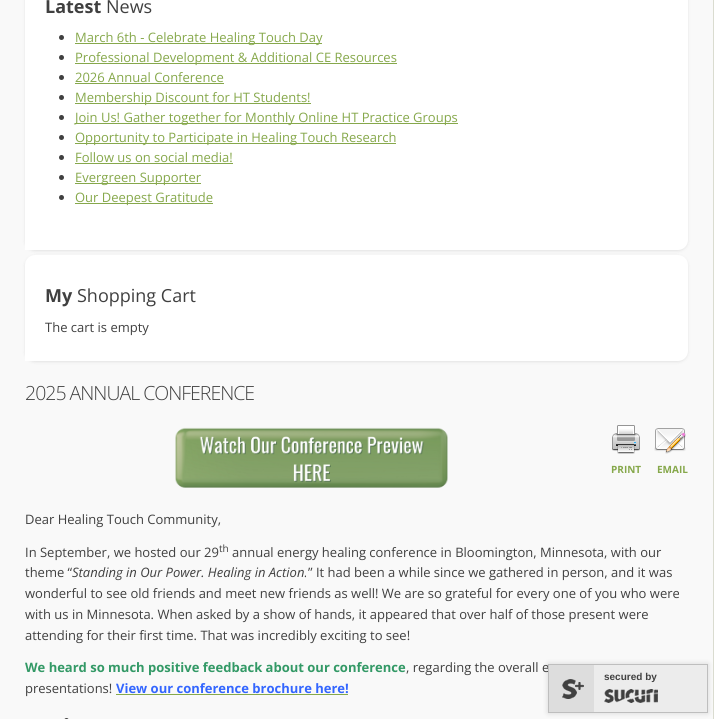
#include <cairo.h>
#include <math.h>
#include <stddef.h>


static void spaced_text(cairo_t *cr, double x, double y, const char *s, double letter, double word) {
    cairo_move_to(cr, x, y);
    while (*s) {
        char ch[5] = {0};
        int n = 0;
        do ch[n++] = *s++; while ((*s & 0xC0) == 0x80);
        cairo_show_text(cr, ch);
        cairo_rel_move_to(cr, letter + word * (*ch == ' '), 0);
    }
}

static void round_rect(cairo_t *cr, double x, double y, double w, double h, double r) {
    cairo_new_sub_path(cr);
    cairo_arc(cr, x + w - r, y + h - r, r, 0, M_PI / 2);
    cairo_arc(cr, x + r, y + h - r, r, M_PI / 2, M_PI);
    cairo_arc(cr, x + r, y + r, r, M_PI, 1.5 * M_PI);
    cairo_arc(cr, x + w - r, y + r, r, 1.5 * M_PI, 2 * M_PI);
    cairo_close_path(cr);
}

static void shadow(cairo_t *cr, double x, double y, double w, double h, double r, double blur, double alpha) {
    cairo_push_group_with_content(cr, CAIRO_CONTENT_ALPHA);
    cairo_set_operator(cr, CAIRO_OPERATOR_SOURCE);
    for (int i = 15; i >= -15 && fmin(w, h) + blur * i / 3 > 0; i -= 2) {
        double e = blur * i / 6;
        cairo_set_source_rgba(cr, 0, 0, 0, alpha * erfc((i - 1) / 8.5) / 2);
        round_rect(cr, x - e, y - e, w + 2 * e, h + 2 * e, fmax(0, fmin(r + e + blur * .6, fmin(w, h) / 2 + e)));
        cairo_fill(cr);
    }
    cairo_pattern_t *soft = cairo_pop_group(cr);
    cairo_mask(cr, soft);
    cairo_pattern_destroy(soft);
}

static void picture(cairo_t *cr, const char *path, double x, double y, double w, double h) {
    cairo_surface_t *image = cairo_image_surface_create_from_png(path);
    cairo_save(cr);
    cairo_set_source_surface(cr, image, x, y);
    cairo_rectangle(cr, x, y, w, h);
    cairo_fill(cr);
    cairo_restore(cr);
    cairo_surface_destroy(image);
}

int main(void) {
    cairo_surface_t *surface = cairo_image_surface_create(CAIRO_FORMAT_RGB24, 714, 719);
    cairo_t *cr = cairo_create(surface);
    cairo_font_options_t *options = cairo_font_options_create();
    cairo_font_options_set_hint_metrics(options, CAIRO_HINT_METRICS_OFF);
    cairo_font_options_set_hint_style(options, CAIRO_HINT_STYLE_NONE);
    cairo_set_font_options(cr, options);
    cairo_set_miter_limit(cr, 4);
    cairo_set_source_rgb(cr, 0.922, 0.933, 0.882);
    cairo_paint(cr);
    cairo_set_source_rgb(cr, 0, 0, 0);
    shadow(cr, 0, -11, 713, 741, 0, 3.5, 0.17);
    cairo_set_source_rgb(cr, 0.973, 0.973, 0.973);
    cairo_rectangle(cr, 0, 0, 713, 719);
    cairo_fill(cr);
    cairo_set_source_rgb(cr, 0, 0, 0);
    shadow(cr, 25, -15, 663, 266, 10, 1.5, 0.09);
    cairo_set_source_rgb(cr, 1, 1, 1);
    cairo_new_path(cr);
    cairo_move_to(cr, 35, -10);
    cairo_line_to(cr, 678, -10);
    cairo_curve_to(cr, 683.5, -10, 688, -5.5, 688, 0);
    cairo_line_to(cr, 688, 240);
    cairo_curve_to(cr, 688, 245.5, 683.5, 250, 678, 250);
    cairo_line_to(cr, 25, 250);
    cairo_line_to(cr, 25, 0);
    cairo_curve_to(cr, 25, -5.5, 29.5, -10, 35, -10);
    cairo_close_path(cr);
    cairo_fill(cr);
    cairo_select_font_face(cr, "Open Sans", CAIRO_FONT_SLANT_NORMAL, CAIRO_FONT_WEIGHT_BOLD);
    cairo_set_font_size(cr, 18);
    cairo_set_source_rgb(cr, 0.251, 0.251, 0.251);
    cairo_move_to(cr, 45, 13);
    cairo_show_text(cr, "Latest");
    cairo_select_font_face(cr, "Open Sans", CAIRO_FONT_SLANT_NORMAL, CAIRO_FONT_WEIGHT_NORMAL);
    cairo_move_to(cr, 106, 13);
    cairo_show_text(cr, "News");
    cairo_new_path(cr);
    cairo_arc(cr, 61.5, 37.5, 2.5, 0, 2 * M_PI);
    cairo_fill(cr);
    cairo_set_source_rgb(cr, 0.525, 0.659, 0.294);
    cairo_rectangle(cr, 75, 43, 247, 1);
    cairo_fill(cr);
    cairo_set_font_size(cr, 13);
    cairo_move_to(cr, 75, 42);
    cairo_show_text(cr, "March 6th - Celebrate Healing Touch Day");
    cairo_set_source_rgb(cr, 0.251, 0.251, 0.251);
    cairo_new_path(cr);
    cairo_arc(cr, 61.5, 57.5, 2.5, 0, 2 * M_PI);
    cairo_fill(cr);
    cairo_set_source_rgb(cr, 0.525, 0.659, 0.294);
    cairo_rectangle(cr, 75, 63, 322, 1);
    cairo_fill(cr);
    cairo_move_to(cr, 75, 62);
    cairo_show_text(cr, "Professional Development & Additional CE Resources");
    cairo_set_source_rgb(cr, 0.251, 0.251, 0.251);
    cairo_new_path(cr);
    cairo_arc(cr, 61.5, 77.5, 2.5, 0, 2 * M_PI);
    cairo_fill(cr);
    cairo_set_source_rgb(cr, 0.525, 0.659, 0.294);
    cairo_move_to(cr, 75, 82);
    cairo_show_text(cr, "2026 Annual Conference");
    cairo_rectangle(cr, 75, 83, 149, 1);
    cairo_fill(cr);
    cairo_set_source_rgb(cr, 0.251, 0.251, 0.251);
    cairo_arc(cr, 61.5, 97.5, 2.5, 0, 2 * M_PI);
    cairo_fill(cr);
    cairo_set_source_rgb(cr, 0.525, 0.659, 0.294);
    cairo_rectangle(cr, 75, 103, 236, 1);
    cairo_fill(cr);
    cairo_move_to(cr, 75, 102);
    cairo_show_text(cr, "Membership Discount for HT Students!");
    cairo_set_source_rgb(cr, 0.251, 0.251, 0.251);
    cairo_new_path(cr);
    cairo_arc(cr, 61.5, 117.5, 2.5, 0, 2 * M_PI);
    cairo_fill(cr);
    cairo_set_source_rgb(cr, 0.525, 0.659, 0.294);
    cairo_rectangle(cr, 75, 123, 383, 1);
    cairo_fill(cr);
    cairo_move_to(cr, 75, 122);
    cairo_show_text(cr, "Join Us! Gather together for Monthly Online HT Practice Groups");
    cairo_set_source_rgb(cr, 0.251, 0.251, 0.251);
    cairo_new_path(cr);
    cairo_arc(cr, 61.5, 137.5, 2.5, 0, 2 * M_PI);
    cairo_fill(cr);
    cairo_set_source_rgb(cr, 0.525, 0.659, 0.294);
    cairo_rectangle(cr, 75, 143, 321, 1);
    cairo_fill(cr);
    cairo_move_to(cr, 75, 142);
    cairo_show_text(cr, "Opportunity to Participate in Healing Touch Research");
    cairo_set_source_rgb(cr, 0.251, 0.251, 0.251);
    cairo_new_path(cr);
    cairo_arc(cr, 61.5, 157.5, 2.5, 0, 2 * M_PI);
    cairo_fill(cr);
    cairo_set_source_rgb(cr, 0.525, 0.659, 0.294);
    cairo_move_to(cr, 75, 162);
    cairo_show_text(cr, "Follow us on social media!");
    cairo_rectangle(cr, 75, 163, 158, 1);
    cairo_fill(cr);
    cairo_set_source_rgb(cr, 0.251, 0.251, 0.251);
    cairo_arc(cr, 61.5, 177.5, 2.5, 0, 2 * M_PI);
    cairo_fill(cr);
    cairo_set_source_rgb(cr, 0.525, 0.659, 0.294);
    cairo_rectangle(cr, 75, 183, 126, 1);
    cairo_fill(cr);
    cairo_move_to(cr, 75, 182);
    cairo_show_text(cr, "Evergreen Supporter");
    cairo_set_source_rgb(cr, 0.251, 0.251, 0.251);
    cairo_new_path(cr);
    cairo_arc(cr, 61.5, 197.5, 2.5, 0, 2 * M_PI);
    cairo_fill(cr);
    cairo_set_source_rgb(cr, 0.525, 0.659, 0.294);
    cairo_rectangle(cr, 75, 203, 138, 1);
    cairo_fill(cr);
    cairo_move_to(cr, 75, 202);
    cairo_show_text(cr, "Our Deepest Gratitude");
    cairo_set_source_rgb(cr, 0, 0, 0);
    shadow(cr, 25, 256, 663, 106, 10, 1.5, 0.09);
    cairo_set_source_rgb(cr, 1, 1, 1);
    cairo_new_path(cr);
    cairo_move_to(cr, 35, 255);
    cairo_line_to(cr, 678, 255);
    cairo_curve_to(cr, 683.5, 255, 688, 259.5, 688, 265);
    cairo_line_to(cr, 688, 351);
    cairo_curve_to(cr, 688, 356.5, 683.5, 361, 678, 361);
    cairo_line_to(cr, 25, 361);
    cairo_line_to(cr, 25, 265);
    cairo_curve_to(cr, 25, 259.5, 29.5, 255, 35, 255);
    cairo_close_path(cr);
    cairo_fill(cr);
    cairo_select_font_face(cr, "Open Sans", CAIRO_FONT_SLANT_NORMAL, CAIRO_FONT_WEIGHT_BOLD);
    cairo_set_font_size(cr, 18);
    cairo_set_source_rgb(cr, 0.251, 0.251, 0.251);
    cairo_move_to(cr, 45, 302);
    cairo_show_text(cr, "My");
    cairo_select_font_face(cr, "Open Sans", CAIRO_FONT_SLANT_NORMAL, CAIRO_FONT_WEIGHT_NORMAL);
    cairo_move_to(cr, 77, 302);
    cairo_show_text(cr, "Shopping Cart");
    cairo_set_font_size(cr, 13);
    cairo_move_to(cr, 45, 332);
    cairo_show_text(cr, "The cart is empty");
    cairo_select_font_face(cr, "Open Sans Light", CAIRO_FONT_SLANT_NORMAL, CAIRO_FONT_WEIGHT_NORMAL);
    cairo_set_font_size(cr, 19.5);
    spaced_text(cr, 25, 400, "2025 ANNUAL CONFERENCE", -1, 0);
    picture(cr, "img1.png", 175, 427, 273, 61);
    picture(cr, "img2.png", 612, 425, 28, 29);
    cairo_select_font_face(cr, "Open Sans", CAIRO_FONT_SLANT_NORMAL, CAIRO_FONT_WEIGHT_BOLD);
    cairo_set_font_size(cr, 10);
    cairo_set_source_rgb(cr, 0.525, 0.659, 0.294);
    cairo_move_to(cr, 611, 473);
    cairo_show_text(cr, "PRINT");
    picture(cr, "img3.png", 654, 428, 32, 26);
    cairo_move_to(cr, 657, 473);
    cairo_show_text(cr, "EMAIL");
    cairo_select_font_face(cr, "Open Sans", CAIRO_FONT_SLANT_NORMAL, CAIRO_FONT_WEIGHT_NORMAL);
    cairo_set_font_size(cr, 13);
    cairo_set_source_rgb(cr, 0.251, 0.251, 0.251);
    cairo_move_to(cr, 25, 524);
    cairo_show_text(cr, "Dear Healing Touch Community,");
    cairo_move_to(cr, 25, 557);
    cairo_show_text(cr, "In September, we hosted our 29");
    cairo_set_font_size(cr, 10);
    cairo_move_to(cr, 219, 552);
    cairo_show_text(cr, "th");
    cairo_set_font_size(cr, 13);
    cairo_move_to(cr, 232, 557);
    cairo_show_text(cr, "annual energy healing conference in Bloomington, Minnesota, with our");
    cairo_move_to(cr, 25, 577);
    cairo_show_text(cr, "theme “");
    cairo_select_font_face(cr, "Open Sans", CAIRO_FONT_SLANT_ITALIC, CAIRO_FONT_WEIGHT_NORMAL);
    cairo_move_to(cr, 72, 577);
    cairo_show_text(cr, "Standing in Our Power. Healing in Action.");
    cairo_select_font_face(cr, "Open Sans", CAIRO_FONT_SLANT_NORMAL, CAIRO_FONT_WEIGHT_NORMAL);
    cairo_move_to(cr, 308, 577);
    cairo_show_text(cr, "” It had been a while since we gathered in person, and it was");
    cairo_move_to(cr, 25, 598);
    cairo_show_text(cr, "wonderful to see old friends and meet new friends as well! We are so grateful for every one of you who were");
    cairo_move_to(cr, 25, 619);
    cairo_show_text(cr, "with us in Minnesota. When asked by a show of hands, it appeared that over half of those present were");
    cairo_move_to(cr, 25, 640);
    cairo_show_text(cr, "attending for their first time. That was incredibly exciting to see!");
    cairo_select_font_face(cr, "Open Sans", CAIRO_FONT_SLANT_NORMAL, CAIRO_FONT_WEIGHT_BOLD);
    cairo_set_source_rgb(cr, 0.2, 0.6, 0.4);
    cairo_move_to(cr, 25, 672);
    cairo_show_text(cr, "We heard so much positive feedback about our conference");
    cairo_select_font_face(cr, "Open Sans", CAIRO_FONT_SLANT_NORMAL, CAIRO_FONT_WEIGHT_NORMAL);
    cairo_set_source_rgb(cr, 0.251, 0.251, 0.251);
    cairo_move_to(cr, 406, 672);
    cairo_show_text(cr, ", regarding the overall e");
    cairo_move_to(cr, 25, 693);
    cairo_show_text(cr, "presentations!");
    cairo_select_font_face(cr, "Open Sans", CAIRO_FONT_SLANT_NORMAL, CAIRO_FONT_WEIGHT_BOLD);
    cairo_set_source_rgb(cr, 0.2, 0.4, 1);
    cairo_move_to(cr, 116, 693);
    cairo_show_text(cr, "View our conference brochure here!");
    cairo_set_source_rgb(cr, 0.525, 0.659, 0.294);
    cairo_rectangle(cr, 116, 694, 232, 1);
    cairo_fill(cr);
    cairo_set_source_rgb(cr, 0.251, 0.251, 0.251);
    round_rect(cr, 64, 718, 5, 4, 2.5);
    cairo_fill(cr);
    cairo_set_source_rgb(cr, 0, 0, 0);
    shadow(cr, 548, 664, 160, 49, 0, 3, 0.14);
    cairo_set_source_rgb(cr, 0.922, 0.922, 0.922);
    cairo_rectangle(cr, 594, 665, 113, 47);
    cairo_fill(cr);
    cairo_rectangle(cr, 548.5, 664.5, 159, 48);
    cairo_set_source_rgb(cr, 0.745, 0.745, 0.745);
    cairo_set_line_width(cr, 1);
    cairo_stroke(cr);
    cairo_set_source_rgb(cr, 0.867, 0.867, 0.867);
    cairo_rectangle(cr, 549, 665, 45, 47);
    cairo_fill(cr);
    picture(cr, "img4.png", 562, 679, 22, 20);
    cairo_select_font_face(cr, "Liberation Sans", CAIRO_FONT_SLANT_NORMAL, CAIRO_FONT_WEIGHT_BOLD);
    cairo_set_font_size(cr, 10);
    cairo_set_source_rgb(cr, 0.251, 0.251, 0.251);
    cairo_move_to(cr, 604, 680);
    cairo_show_text(cr, "secured by");
    picture(cr, "img5.png", 604, 689, 54, 14);
    cairo_surface_write_to_png(surface, "page.png");
    cairo_font_options_destroy(options);
    cairo_destroy(cr);
    cairo_surface_destroy(surface);
    return 0;
}
